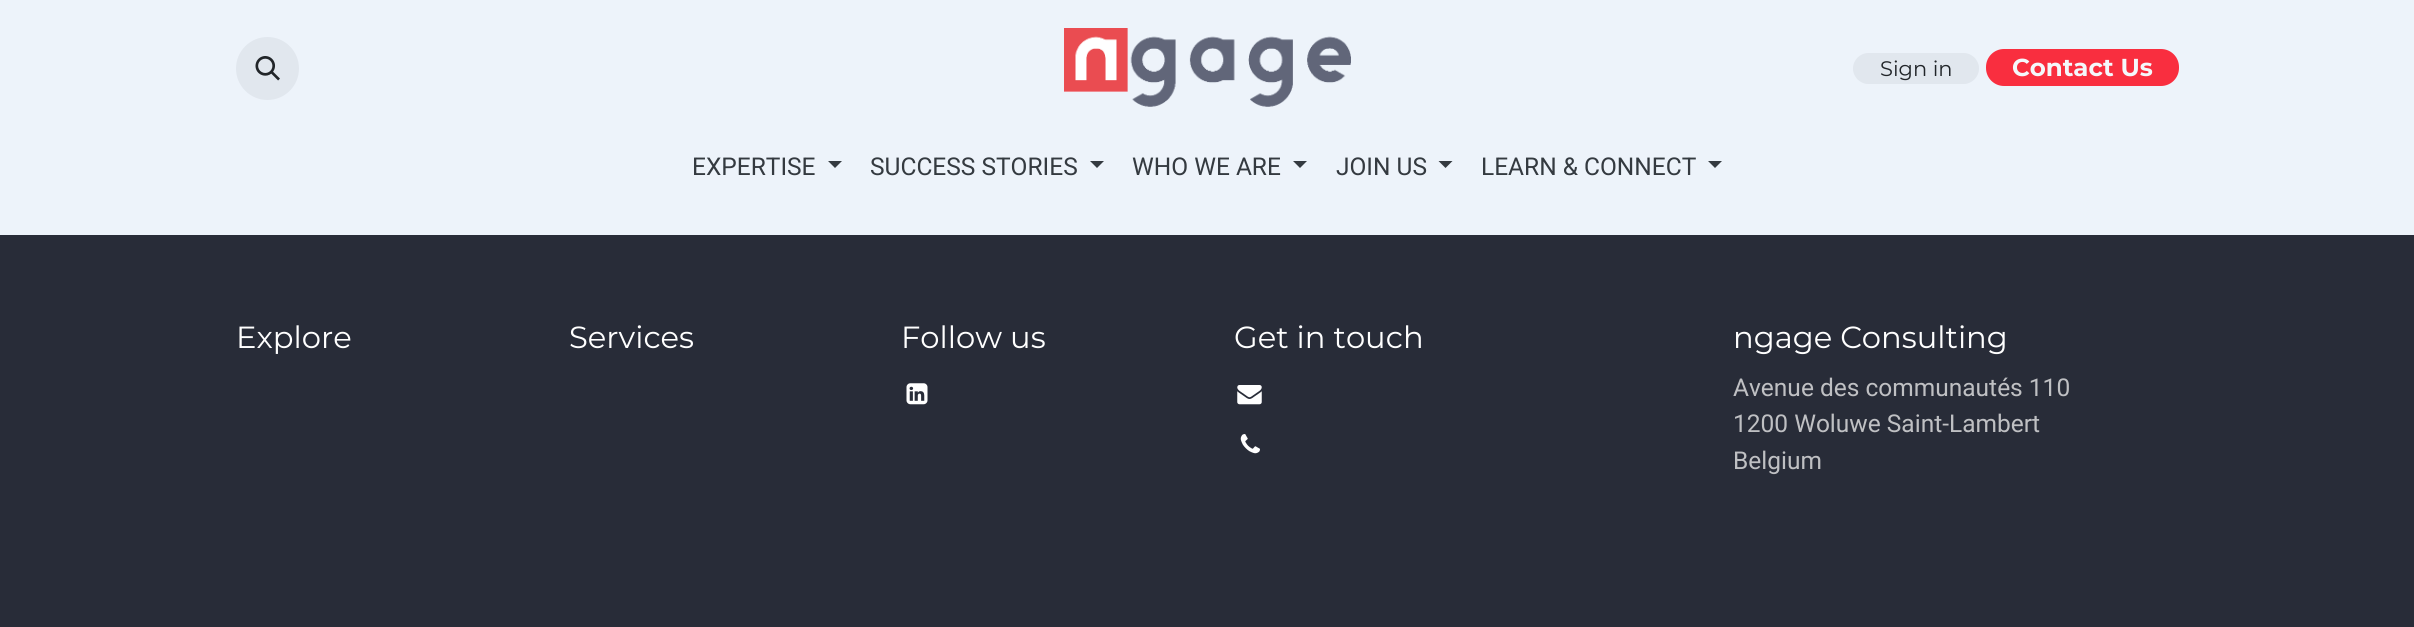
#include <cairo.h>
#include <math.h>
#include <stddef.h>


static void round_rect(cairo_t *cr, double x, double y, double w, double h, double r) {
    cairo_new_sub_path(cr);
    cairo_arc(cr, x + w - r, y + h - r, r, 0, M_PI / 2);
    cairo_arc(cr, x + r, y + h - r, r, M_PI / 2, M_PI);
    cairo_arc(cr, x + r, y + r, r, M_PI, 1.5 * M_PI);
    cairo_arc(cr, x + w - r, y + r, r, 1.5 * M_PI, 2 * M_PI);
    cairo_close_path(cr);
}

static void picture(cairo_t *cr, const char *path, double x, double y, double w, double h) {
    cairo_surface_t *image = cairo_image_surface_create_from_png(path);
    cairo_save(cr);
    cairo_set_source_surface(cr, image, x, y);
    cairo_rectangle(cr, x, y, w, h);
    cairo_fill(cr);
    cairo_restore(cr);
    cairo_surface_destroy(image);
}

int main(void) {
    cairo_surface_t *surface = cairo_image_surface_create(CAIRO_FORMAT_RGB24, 2414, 627);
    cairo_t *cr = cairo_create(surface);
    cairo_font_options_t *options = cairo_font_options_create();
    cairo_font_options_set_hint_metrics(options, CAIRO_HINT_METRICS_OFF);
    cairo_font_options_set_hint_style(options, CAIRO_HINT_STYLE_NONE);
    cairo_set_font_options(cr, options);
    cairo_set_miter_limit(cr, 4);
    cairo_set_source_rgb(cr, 0.929, 0.953, 0.98);
    cairo_paint(cr);
    cairo_set_source_rgb(cr, 0.882, 0.906, 0.933);
    cairo_arc(cr, 267.5, 68.5, 31.5, 0, 2 * M_PI);
    cairo_fill(cr);
    picture(cr, "img1.png", 255, 56, 25, 25);
    picture(cr, "img2.png", 1064, 28, 287, 79);
    round_rect(cr, 1853, 53, 126, 31, 15.5);
    cairo_fill(cr);
    cairo_select_font_face(cr, "Montserrat", CAIRO_FONT_SLANT_NORMAL, CAIRO_FONT_WEIGHT_NORMAL);
    cairo_set_font_size(cr, 21);
    cairo_set_source_rgb(cr, 0.129, 0.145, 0.161);
    cairo_move_to(cr, 1880, 76);
    cairo_show_text(cr, "Sign in");
    cairo_set_source_rgb(cr, 0.976, 0.18, 0.247);
    round_rect(cr, 1986, 49, 193, 37, 18);
    cairo_fill(cr);
    cairo_select_font_face(cr, "Montserrat", CAIRO_FONT_SLANT_NORMAL, CAIRO_FONT_WEIGHT_BOLD);
    cairo_set_font_size(cr, 24.5);
    cairo_set_source_rgb(cr, 0.957, 0.969, 0.984);
    cairo_move_to(cr, 2012, 76);
    cairo_show_text(cr, "Contact Us");
    cairo_select_font_face(cr, "Roboto", CAIRO_FONT_SLANT_NORMAL, CAIRO_FONT_WEIGHT_NORMAL);
    cairo_set_source_rgb(cr, 0.204, 0.227, 0.251);
    cairo_move_to(cr, 692, 175);
    cairo_show_text(cr, "EXPERTISE");
    cairo_new_path(cr);
    cairo_move_to(cr, 828, 161);
    cairo_line_to(cr, 842, 161);
    cairo_line_to(cr, 835, 168);
    cairo_close_path(cr);
    cairo_fill(cr);
    cairo_move_to(cr, 870, 175);
    cairo_show_text(cr, "SUCCESS STORIES");
    cairo_new_path(cr);
    cairo_move_to(cr, 1090, 161);
    cairo_line_to(cr, 1104, 161);
    cairo_line_to(cr, 1097, 168);
    cairo_close_path(cr);
    cairo_fill(cr);
    cairo_move_to(cr, 1132, 175);
    cairo_show_text(cr, "WHO WE ARE");
    cairo_new_path(cr);
    cairo_move_to(cr, 1293, 161);
    cairo_line_to(cr, 1307, 161);
    cairo_line_to(cr, 1300, 168);
    cairo_close_path(cr);
    cairo_fill(cr);
    cairo_move_to(cr, 1336, 175);
    cairo_show_text(cr, "JOIN US");
    cairo_new_path(cr);
    cairo_move_to(cr, 1438.5, 161);
    cairo_line_to(cr, 1452.5, 161);
    cairo_line_to(cr, 1445.5, 168);
    cairo_close_path(cr);
    cairo_fill(cr);
    cairo_move_to(cr, 1481, 175);
    cairo_show_text(cr, "LEARN & CONNECT");
    cairo_new_path(cr);
    cairo_move_to(cr, 1708, 161);
    cairo_line_to(cr, 1722, 161);
    cairo_line_to(cr, 1715, 168);
    cairo_close_path(cr);
    cairo_fill(cr);
    cairo_set_source_rgb(cr, 0.157, 0.173, 0.22);
    cairo_rectangle(cr, 0, 235, 2414, 392);
    cairo_fill(cr);
    cairo_select_font_face(cr, "Montserrat", CAIRO_FONT_SLANT_NORMAL, CAIRO_FONT_WEIGHT_NORMAL);
    cairo_set_font_size(cr, 30.6);
    cairo_set_source_rgb(cr, 1, 1, 1);
    cairo_move_to(cr, 236, 348);
    cairo_show_text(cr, "Explore");
    cairo_move_to(cr, 569, 348);
    cairo_show_text(cr, "Services");
    cairo_move_to(cr, 901, 348);
    cairo_show_text(cr, "Follow us");
    picture(cr, "img3.png", 906, 383, 22, 22);
    cairo_move_to(cr, 1234, 348);
    cairo_show_text(cr, "Get in touch");
    picture(cr, "img4.png", 1237, 385, 25, 20);
    picture(cr, "img5.png", 1240, 434, 20, 20);
    cairo_move_to(cr, 1733, 348);
    cairo_show_text(cr, "ngage Consulting");
    cairo_select_font_face(cr, "Roboto", CAIRO_FONT_SLANT_NORMAL, CAIRO_FONT_WEIGHT_NORMAL);
    cairo_set_font_size(cr, 24.5);
    cairo_set_source_rgb(cr, 0.749, 0.753, 0.765);
    cairo_move_to(cr, 1733, 396);
    cairo_show_text(cr, "Avenue des communautés 110");
    cairo_move_to(cr, 1733, 432);
    cairo_show_text(cr, "1200 Woluwe Saint-Lambert");
    cairo_move_to(cr, 1733, 469);
    cairo_show_text(cr, "Belgium");
    cairo_surface_write_to_png(surface, "page.png");
    cairo_font_options_destroy(options);
    cairo_destroy(cr);
    cairo_surface_destroy(surface);
    return 0;
}
